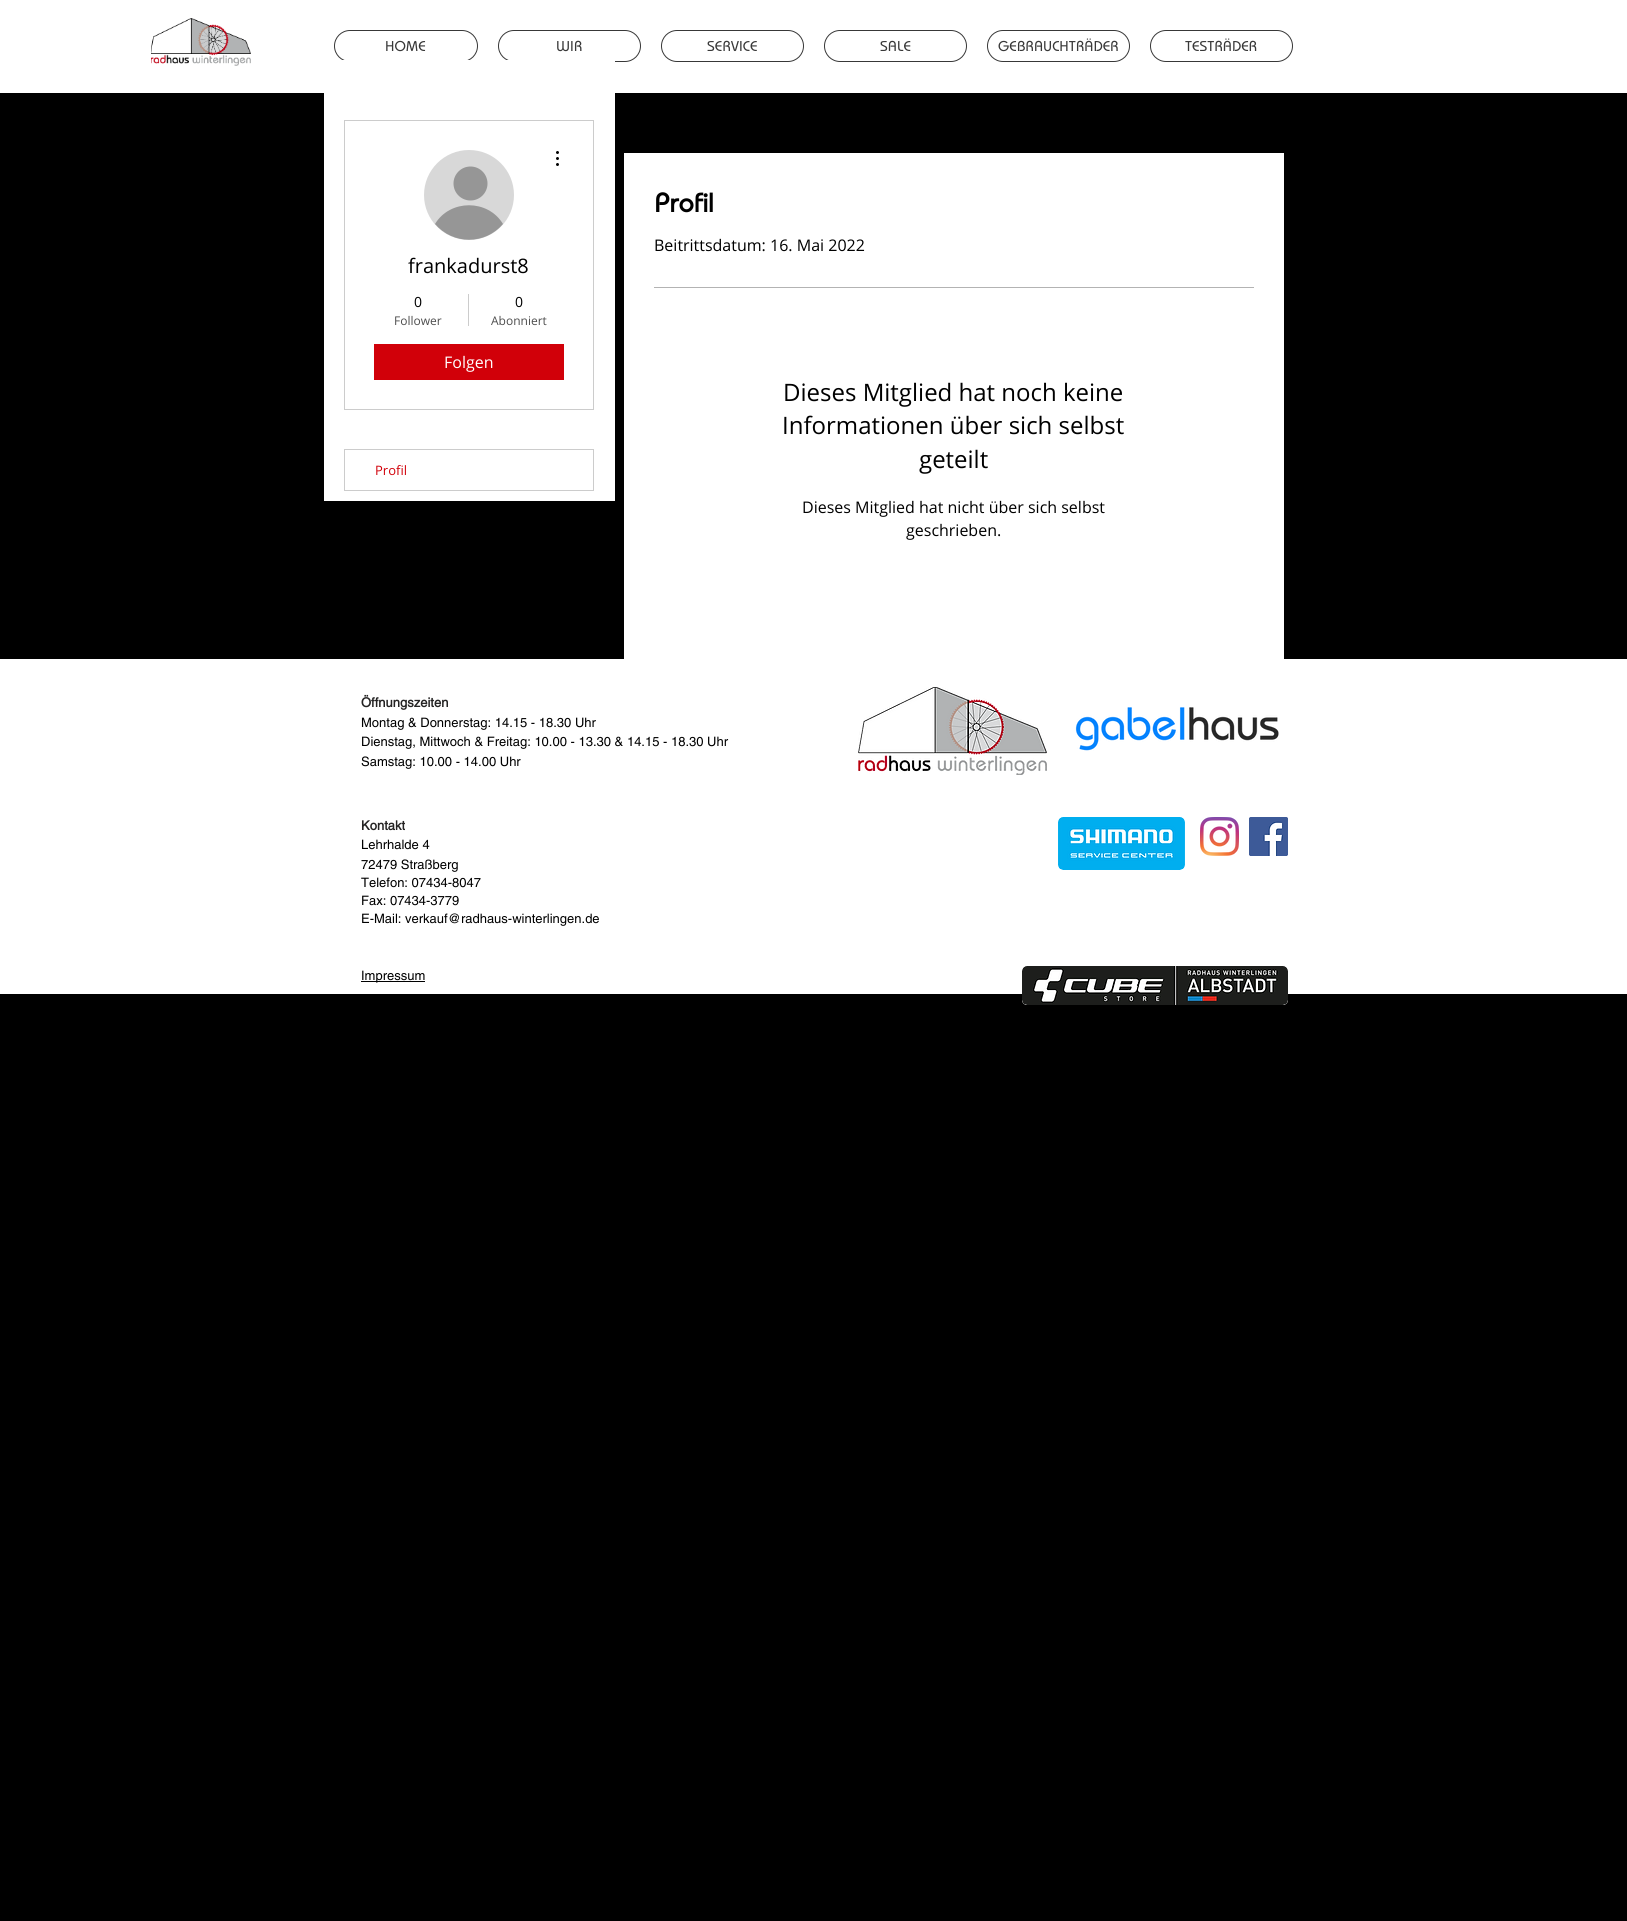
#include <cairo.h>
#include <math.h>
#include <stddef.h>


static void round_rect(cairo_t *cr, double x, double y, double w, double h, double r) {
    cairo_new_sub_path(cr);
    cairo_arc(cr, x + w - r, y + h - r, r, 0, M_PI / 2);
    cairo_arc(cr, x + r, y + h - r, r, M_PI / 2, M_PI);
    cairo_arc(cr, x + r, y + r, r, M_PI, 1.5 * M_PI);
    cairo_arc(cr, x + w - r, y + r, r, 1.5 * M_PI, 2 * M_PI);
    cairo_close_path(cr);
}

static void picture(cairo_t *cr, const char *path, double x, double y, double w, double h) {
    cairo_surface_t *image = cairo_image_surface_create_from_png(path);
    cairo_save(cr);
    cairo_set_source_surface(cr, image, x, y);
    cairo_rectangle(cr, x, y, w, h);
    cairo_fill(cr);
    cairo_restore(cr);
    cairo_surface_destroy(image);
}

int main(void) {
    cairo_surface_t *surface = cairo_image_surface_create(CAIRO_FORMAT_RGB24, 1627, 1921);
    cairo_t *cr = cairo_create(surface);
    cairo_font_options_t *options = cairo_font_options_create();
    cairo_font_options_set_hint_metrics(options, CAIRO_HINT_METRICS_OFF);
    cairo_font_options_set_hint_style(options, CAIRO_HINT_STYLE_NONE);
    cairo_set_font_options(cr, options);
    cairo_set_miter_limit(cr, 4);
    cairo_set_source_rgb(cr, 0, 0, 0);
    cairo_paint(cr);
    cairo_set_source_rgb(cr, 1, 1, 1);
    cairo_rectangle(cr, 0, 0, 1627, 93);
    cairo_fill(cr);
    picture(cr, "img1.png", 151, 18, 100, 48);
    round_rect(cr, 334.5, 30.5, 143, 31, 15.5);
    cairo_set_source_rgb(cr, 0.22, 0.22, 0.22);
    cairo_set_line_width(cr, 1);
    cairo_stroke(cr);
    cairo_select_font_face(cr, "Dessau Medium", CAIRO_FONT_SLANT_NORMAL, CAIRO_FONT_WEIGHT_NORMAL);
    cairo_set_font_size(cr, 15);
    cairo_move_to(cr, 385, 51);
    cairo_show_text(cr, "HOME");
    round_rect(cr, 498.5, 30.5, 142, 31, 15.5);
    cairo_stroke(cr);
    cairo_move_to(cr, 556, 51);
    cairo_show_text(cr, "WIR");
    round_rect(cr, 661.5, 30.5, 142, 31, 15.5);
    cairo_stroke(cr);
    cairo_move_to(cr, 707, 51);
    cairo_show_text(cr, "SERVICE");
    round_rect(cr, 824.5, 30.5, 142, 31, 15.5);
    cairo_stroke(cr);
    cairo_move_to(cr, 880, 51);
    cairo_show_text(cr, "SALE");
    round_rect(cr, 987.5, 30.5, 142, 31, 15.5);
    cairo_stroke(cr);
    cairo_move_to(cr, 998, 51);
    cairo_show_text(cr, "GEBRAUCHTRÄDER");
    round_rect(cr, 1150.5, 30.5, 142, 31, 15.5);
    cairo_stroke(cr);
    cairo_move_to(cr, 1185, 51);
    cairo_show_text(cr, "TESTRÄDER");
    cairo_set_source_rgb(cr, 1, 1, 1);
    cairo_rectangle(cr, 324, 60, 291, 441);
    cairo_fill(cr);
    cairo_rectangle(cr, 344.5, 120.5, 249, 289);
    cairo_set_source_rgb(cr, 0.8, 0.8, 0.8);
    cairo_stroke(cr);
    cairo_set_source_rgb(cr, 0.847, 0.847, 0.847);
    cairo_arc(cr, 469, 195, 45, 0, 2 * M_PI);
    cairo_fill(cr);
    cairo_set_source_rgb(cr, 0.588, 0.588, 0.588);
    cairo_arc(cr, 470.5, 183.5, 17, 0, 2 * M_PI);
    cairo_fill(cr);
    cairo_new_path(cr);
    cairo_move_to(cr, 503, 224);
    cairo_curve_to(cr, 485, 245, 453, 245, 435, 224);
    cairo_curve_to(cr, 450, 199, 488, 199, 503, 224);
    cairo_close_path(cr);
    cairo_fill(cr);
    picture(cr, "img2.png", 556, 151, 3, 15);
    cairo_select_font_face(cr, "Open Sans", CAIRO_FONT_SLANT_NORMAL, CAIRO_FONT_WEIGHT_NORMAL);
    cairo_set_font_size(cr, 20);
    cairo_set_source_rgb(cr, 0, 0, 0);
    cairo_move_to(cr, 408, 273);
    cairo_show_text(cr, "frankadurst8");
    cairo_set_font_size(cr, 14);
    cairo_move_to(cr, 414, 307);
    cairo_show_text(cr, "0");
    cairo_set_font_size(cr, 12);
    cairo_set_source_rgb(cr, 0.302, 0.302, 0.302);
    cairo_move_to(cr, 394, 325);
    cairo_show_text(cr, "Follower");
    cairo_set_source_rgb(cr, 0.8, 0.8, 0.8);
    cairo_rectangle(cr, 468, 294, 1, 32);
    cairo_fill(cr);
    cairo_set_font_size(cr, 14);
    cairo_set_source_rgb(cr, 0, 0, 0);
    cairo_move_to(cr, 515, 307);
    cairo_show_text(cr, "0");
    cairo_set_font_size(cr, 12);
    cairo_set_source_rgb(cr, 0.302, 0.302, 0.302);
    cairo_move_to(cr, 491, 325);
    cairo_show_text(cr, "Abonniert");
    cairo_set_source_rgb(cr, 0.82, 0, 0.039);
    cairo_rectangle(cr, 374, 344, 190, 36);
    cairo_fill(cr);
    cairo_set_font_size(cr, 16);
    cairo_set_source_rgb(cr, 1, 1, 1);
    cairo_move_to(cr, 444, 368);
    cairo_show_text(cr, "Folgen");
    cairo_rectangle(cr, 344.5, 449.5, 249, 41);
    cairo_set_source_rgb(cr, 0.8, 0.8, 0.8);
    cairo_stroke(cr);
    cairo_set_font_size(cr, 13);
    cairo_set_source_rgb(cr, 0.82, 0, 0.039);
    cairo_move_to(cr, 375, 475);
    cairo_show_text(cr, "Profil");
    cairo_set_source_rgb(cr, 1, 1, 1);
    cairo_rectangle(cr, 624, 153, 660, 506);
    cairo_fill(cr);
    cairo_select_font_face(cr, "Dessau", CAIRO_FONT_SLANT_NORMAL, CAIRO_FONT_WEIGHT_BOLD);
    cairo_set_font_size(cr, 28);
    cairo_set_source_rgb(cr, 0, 0, 0);
    cairo_move_to(cr, 654, 212);
    cairo_show_text(cr, "Profil");
    cairo_select_font_face(cr, "Open Sans", CAIRO_FONT_SLANT_NORMAL, CAIRO_FONT_WEIGHT_NORMAL);
    cairo_set_font_size(cr, 16);
    cairo_move_to(cr, 654, 251);
    cairo_show_text(cr, "Beitrittsdatum: 16. Mai 2022");
    cairo_set_source_rgb(cr, 0.702, 0.702, 0.702);
    cairo_rectangle(cr, 654, 287, 600, 1);
    cairo_fill(cr);
    cairo_set_font_size(cr, 24);
    cairo_set_source_rgb(cr, 0, 0, 0);
    cairo_move_to(cr, 783, 401);
    cairo_show_text(cr, "Dieses Mitglied hat noch keine");
    cairo_move_to(cr, 782, 434);
    cairo_show_text(cr, "Informationen über sich selbst");
    cairo_move_to(cr, 919, 468);
    cairo_show_text(cr, "geteilt");
    cairo_set_font_size(cr, 16);
    cairo_move_to(cr, 802, 513);
    cairo_show_text(cr, "Dieses Mitglied hat nicht über sich selbst");
    cairo_move_to(cr, 906, 536);
    cairo_show_text(cr, "geschrieben.");
    cairo_set_source_rgb(cr, 1, 1, 1);
    cairo_rectangle(cr, 0, 659, 1627, 335);
    cairo_fill(cr);
    cairo_select_font_face(cr, "helvetica", CAIRO_FONT_SLANT_NORMAL, CAIRO_FONT_WEIGHT_BOLD);
    cairo_set_font_size(cr, 13);
    cairo_set_source_rgb(cr, 0.141, 0.137, 0.137);
    cairo_move_to(cr, 361, 707);
    cairo_show_text(cr, "Öffnungszeiten");
    cairo_select_font_face(cr, "helvetica", CAIRO_FONT_SLANT_NORMAL, CAIRO_FONT_WEIGHT_NORMAL);
    cairo_set_source_rgb(cr, 0, 0, 0);
    cairo_move_to(cr, 361, 727);
    cairo_show_text(cr, "Montag & Donnerstag: 14.15 - 18.30 Uhr");
    cairo_move_to(cr, 361, 746);
    cairo_show_text(cr, "Dienstag, Mittwoch & Freitag: 10.00 - 13.30 & 14.15 - 18.30 Uhr");
    cairo_move_to(cr, 361, 766);
    cairo_show_text(cr, "Samstag: 10.00 - 14.00 Uhr");
    picture(cr, "img3.png", 858, 687, 189, 88);
    picture(cr, "img4.png", 1075, 707, 204, 44);
    cairo_select_font_face(cr, "helvetica", CAIRO_FONT_SLANT_NORMAL, CAIRO_FONT_WEIGHT_BOLD);
    cairo_set_source_rgb(cr, 0.141, 0.137, 0.137);
    cairo_move_to(cr, 361, 830);
    cairo_show_text(cr, "Kontakt");
    cairo_select_font_face(cr, "helvetica", CAIRO_FONT_SLANT_NORMAL, CAIRO_FONT_WEIGHT_NORMAL);
    cairo_set_source_rgb(cr, 0, 0, 0);
    cairo_move_to(cr, 361, 849);
    cairo_show_text(cr, "Lehrhalde 4");
    cairo_move_to(cr, 361, 869);
    cairo_show_text(cr, "72479 Straßberg");
    cairo_move_to(cr, 361, 887);
    cairo_show_text(cr, "Telefon: 07434-8047");
    cairo_move_to(cr, 361, 905);
    cairo_show_text(cr, "Fax: 07434-3779");
    cairo_move_to(cr, 361, 923);
    cairo_show_text(cr, "E-Mail: verkauf@radhaus-winterlingen.de");
    picture(cr, "img5.png", 1058, 817, 127, 53);
    picture(cr, "img6.png", 1200, 817, 39, 39);
    picture(cr, "img7.png", 1249, 817, 39, 39);
    cairo_rectangle(cr, 361, 981, 64, 1);
    cairo_fill(cr);
    cairo_move_to(cr, 361, 980);
    cairo_show_text(cr, "Impressum");
    cairo_set_source_rgb(cr, 1, 1, 1);
    round_rect(cr, 1022, 966, 266, 39, 5);
    cairo_fill(cr);
    picture(cr, "img8.png", 1022, 966, 266, 39);
    cairo_surface_write_to_png(surface, "page.png");
    cairo_font_options_destroy(options);
    cairo_destroy(cr);
    cairo_surface_destroy(surface);
    return 0;
}
